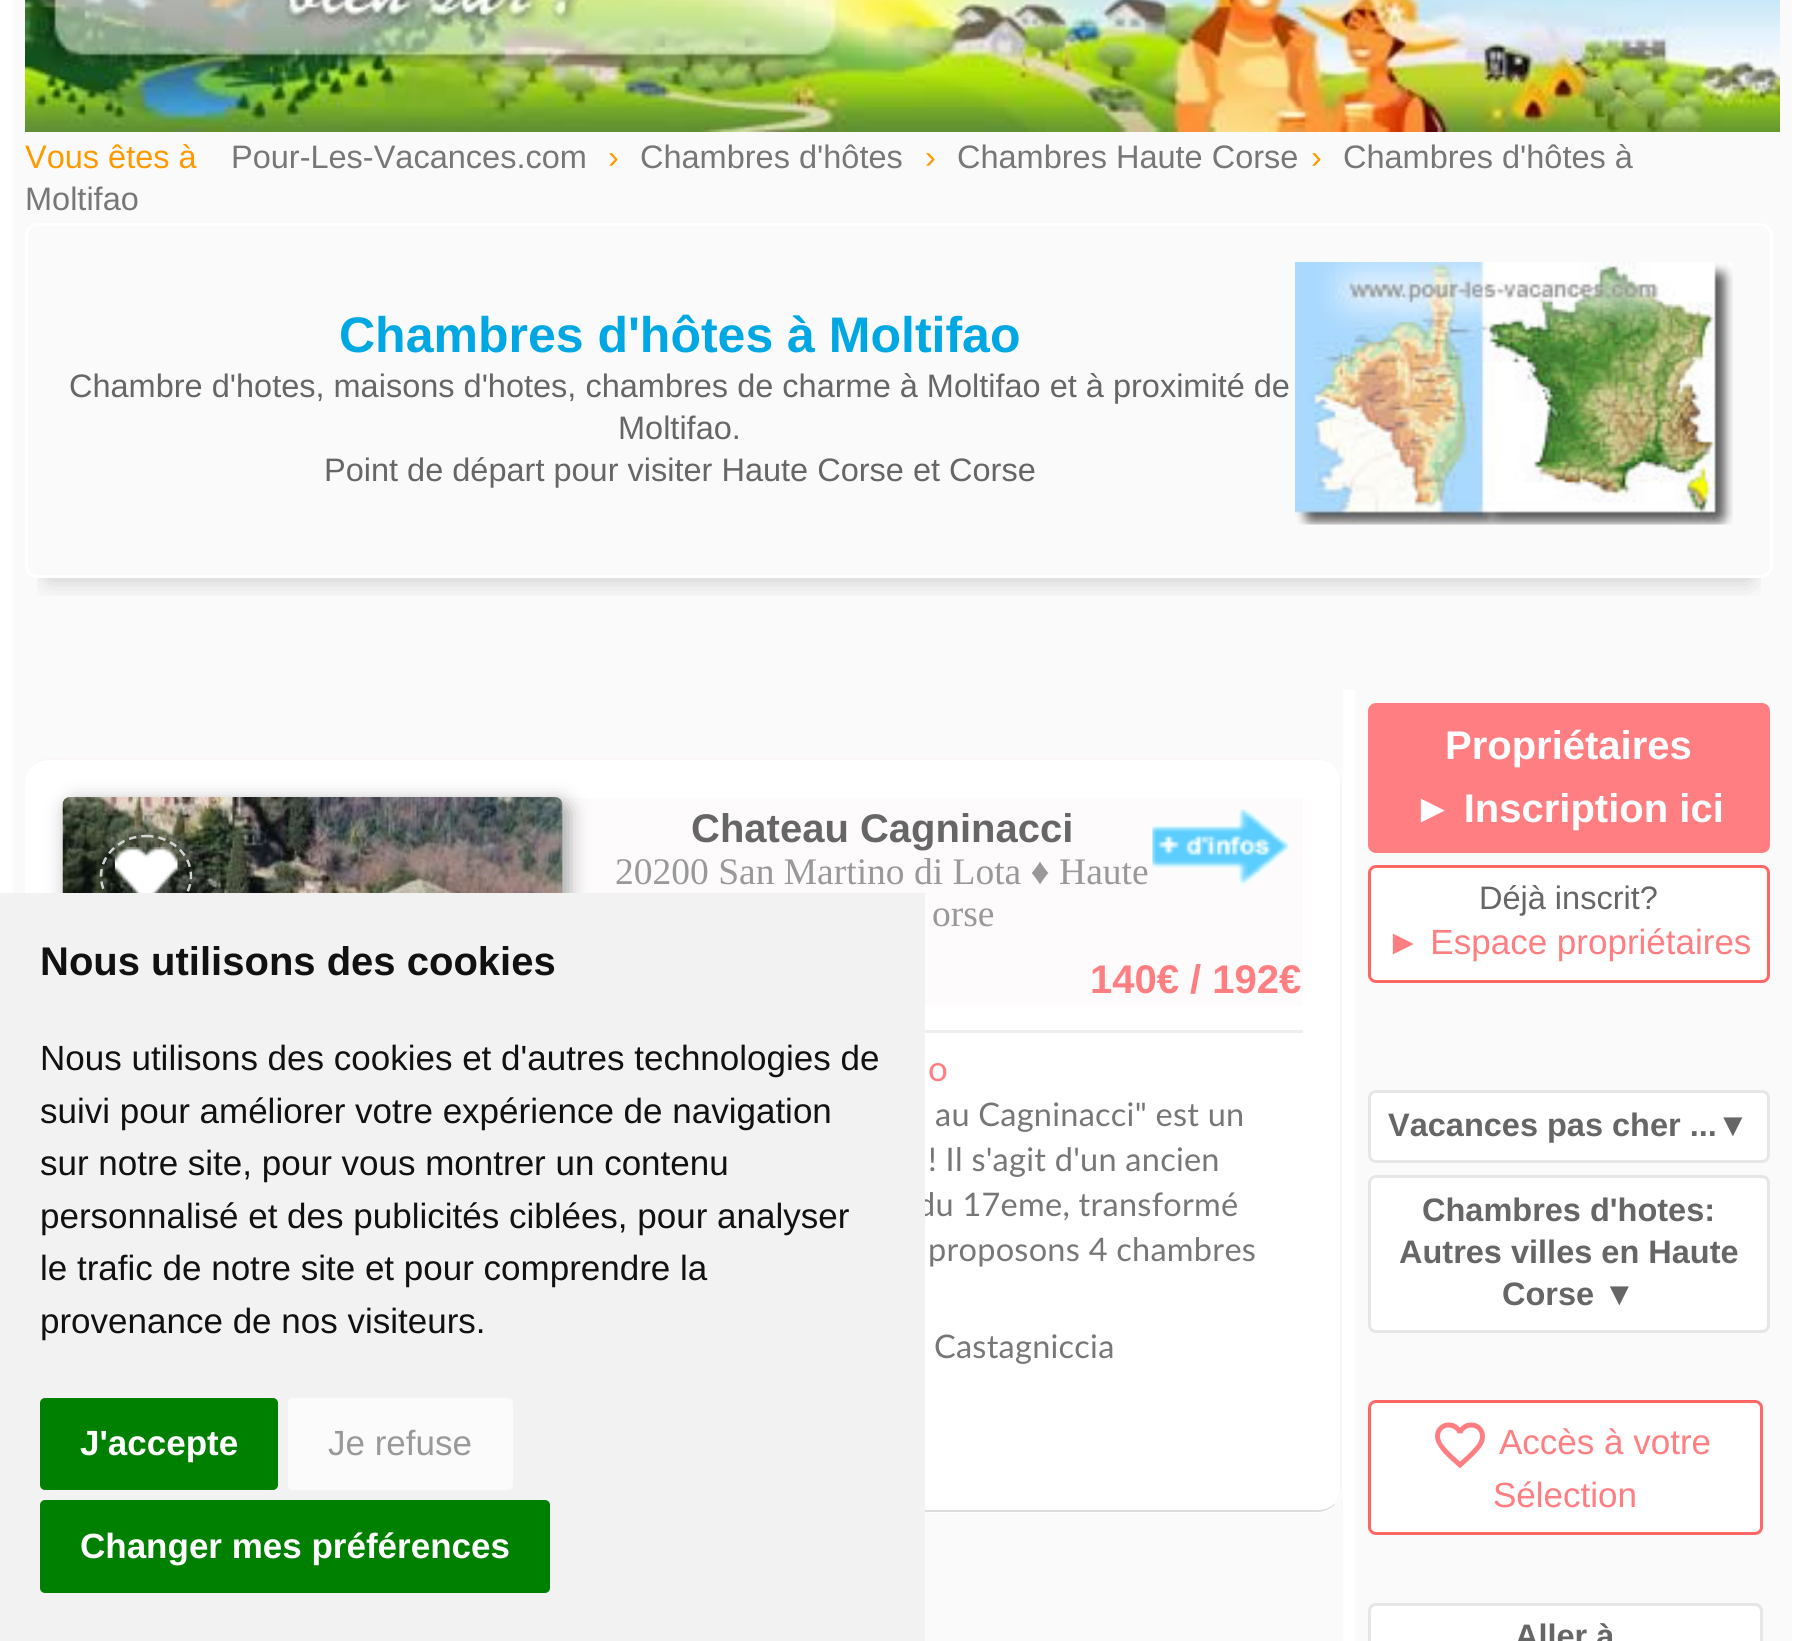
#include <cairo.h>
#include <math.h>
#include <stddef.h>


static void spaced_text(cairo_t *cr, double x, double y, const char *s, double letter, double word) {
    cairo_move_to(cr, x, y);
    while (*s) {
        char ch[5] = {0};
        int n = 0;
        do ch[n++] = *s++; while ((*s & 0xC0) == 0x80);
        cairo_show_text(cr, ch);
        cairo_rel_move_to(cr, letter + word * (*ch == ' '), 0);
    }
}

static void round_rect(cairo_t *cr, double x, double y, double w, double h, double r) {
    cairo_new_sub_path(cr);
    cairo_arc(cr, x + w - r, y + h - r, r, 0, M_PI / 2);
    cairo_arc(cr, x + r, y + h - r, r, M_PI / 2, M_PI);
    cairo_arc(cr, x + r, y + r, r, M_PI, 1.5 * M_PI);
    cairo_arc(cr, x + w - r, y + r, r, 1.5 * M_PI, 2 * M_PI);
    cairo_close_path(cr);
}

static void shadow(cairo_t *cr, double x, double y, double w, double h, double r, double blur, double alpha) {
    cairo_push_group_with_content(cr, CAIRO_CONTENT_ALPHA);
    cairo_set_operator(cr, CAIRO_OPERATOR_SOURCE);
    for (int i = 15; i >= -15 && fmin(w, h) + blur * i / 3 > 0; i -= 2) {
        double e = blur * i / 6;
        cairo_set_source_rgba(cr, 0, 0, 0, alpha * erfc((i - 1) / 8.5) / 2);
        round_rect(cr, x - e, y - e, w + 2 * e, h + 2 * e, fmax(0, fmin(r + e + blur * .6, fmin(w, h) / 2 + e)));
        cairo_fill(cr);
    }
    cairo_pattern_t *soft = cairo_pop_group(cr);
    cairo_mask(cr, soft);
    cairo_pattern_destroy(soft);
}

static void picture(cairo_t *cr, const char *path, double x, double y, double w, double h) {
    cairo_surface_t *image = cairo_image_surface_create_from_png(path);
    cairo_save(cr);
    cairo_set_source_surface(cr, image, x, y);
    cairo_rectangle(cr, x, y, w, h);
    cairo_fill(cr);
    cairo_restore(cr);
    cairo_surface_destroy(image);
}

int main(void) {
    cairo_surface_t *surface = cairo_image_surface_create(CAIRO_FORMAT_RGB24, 1804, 1641);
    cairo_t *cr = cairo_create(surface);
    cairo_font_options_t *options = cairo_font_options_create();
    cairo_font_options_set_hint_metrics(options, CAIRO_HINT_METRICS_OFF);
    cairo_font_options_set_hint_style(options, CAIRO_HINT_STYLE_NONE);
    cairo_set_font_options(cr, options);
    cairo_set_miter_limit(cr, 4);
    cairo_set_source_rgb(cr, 0.98, 0.98, 0.98);
    cairo_paint(cr);
    cairo_rectangle(cr, 6.5, -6.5, 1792, 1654);
    cairo_set_source_rgb(cr, 1, 1, 1);
    cairo_set_line_width(cr, 13);
    cairo_stroke(cr);
    picture(cr, "img1.png", 25, 0, 1755, 132);
    cairo_select_font_face(cr, "Liberation Sans", CAIRO_FONT_SLANT_NORMAL, CAIRO_FONT_WEIGHT_NORMAL);
    cairo_set_font_size(cr, 32.5);
    cairo_set_source_rgb(cr, 1, 0.6, 0);
    cairo_move_to(cr, 25, 168);
    cairo_show_text(cr, "Vous êtes à");
    cairo_set_source_rgb(cr, 0.467, 0.467, 0.467);
    cairo_move_to(cr, 231, 168);
    cairo_show_text(cr, "Pour-Les-Vacances.com");
    cairo_set_source_rgb(cr, 1, 0.6, 0);
    cairo_move_to(cr, 608, 168);
    cairo_show_text(cr, "›");
    cairo_set_source_rgb(cr, 0.467, 0.467, 0.467);
    cairo_move_to(cr, 640, 168);
    cairo_show_text(cr, "Chambres d'hôtes");
    cairo_set_source_rgb(cr, 1, 0.6, 0);
    cairo_move_to(cr, 925, 168);
    cairo_show_text(cr, "›");
    cairo_set_source_rgb(cr, 0.467, 0.467, 0.467);
    cairo_move_to(cr, 957, 168);
    cairo_show_text(cr, "Chambres Haute Corse");
    cairo_set_source_rgb(cr, 1, 0.6, 0);
    cairo_move_to(cr, 1311, 168);
    cairo_show_text(cr, "›");
    cairo_set_source_rgb(cr, 0.467, 0.467, 0.467);
    cairo_move_to(cr, 1343, 168);
    cairo_show_text(cr, "Chambres d'hôtes à");
    cairo_move_to(cr, 25, 210);
    cairo_show_text(cr, "Moltifao");
    cairo_save(cr);
    cairo_rectangle(cr, 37, 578, 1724, 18);
    cairo_clip(cr);
    cairo_set_source_rgb(cr, 0, 0, 0);
    shadow(cr, 48, 270, 1702, 310, 0, 12.5, 0.2);
    cairo_restore(cr);
    round_rect(cr, 26.5, 224.5, 1745, 352, 11.5);
    cairo_set_source_rgb(cr, 1, 1, 1);
    cairo_set_line_width(cr, 3);
    cairo_stroke(cr);
    cairo_select_font_face(cr, "Liberation Sans", CAIRO_FONT_SLANT_NORMAL, CAIRO_FONT_WEIGHT_BOLD);
    cairo_set_font_size(cr, 50);
    cairo_set_source_rgb(cr, 0, 0.659, 0.89);
    cairo_move_to(cr, 339, 352);
    cairo_show_text(cr, "Chambres d'hôtes à Moltifao");
    picture(cr, "img2.png", 1295, 262, 438, 263);
    cairo_select_font_face(cr, "Liberation Sans", CAIRO_FONT_SLANT_NORMAL, CAIRO_FONT_WEIGHT_NORMAL);
    cairo_set_font_size(cr, 32.5);
    cairo_set_source_rgb(cr, 0.4, 0.4, 0.4);
    cairo_move_to(cr, 69, 397);
    cairo_show_text(cr, "Chambre d'hotes, maisons d'hotes, chambres de charme à Moltifao et à proximité de");
    cairo_move_to(cr, 618, 439);
    cairo_show_text(cr, "Moltifao.");
    cairo_move_to(cr, 324, 481);
    cairo_show_text(cr, "Point de départ pour visiter Haute Corse et Corse");
    cairo_set_source_rgb(cr, 1, 1, 1);
    round_rect(cr, 25, 758, 1318, 755, 25);
    cairo_fill(cr);
    cairo_set_source_rgb(cr, 0.98, 0.961, 0.961);
    cairo_new_path(cr);
    cairo_move_to(cr, 50, 758);
    cairo_line_to(cr, 1318, 758);
    cairo_curve_to(cr, 1324, 758, 1330, 761, 1335, 765);
    cairo_line_to(cr, 1334, 766);
    cairo_curve_to(cr, 1330, 762, 1324, 760, 1318, 760);
    cairo_line_to(cr, 50, 760);
    cairo_curve_to(cr, 36, 760, 25, 770, 25, 782);
    cairo_curve_to(cr, 25, 769, 36, 758, 50, 758);
    cairo_close_path(cr);
    cairo_fill(cr);
    cairo_new_path(cr);
    cairo_move_to(cr, 1335, 765);
    cairo_curve_to(cr, 1339, 770, 1342, 776, 1342, 782);
    cairo_line_to(cr, 1342, 1488);
    cairo_curve_to(cr, 1342, 1494, 1339, 1500, 1335, 1505);
    cairo_line_to(cr, 1334, 1504);
    cairo_curve_to(cr, 1338, 1500, 1340, 1494, 1340, 1488);
    cairo_line_to(cr, 1340, 782);
    cairo_curve_to(cr, 1340, 776, 1338, 770, 1334, 766);
    cairo_close_path(cr);
    cairo_fill(cr);
    cairo_set_source_rgb(cr, 0.867, 0.867, 0.867);
    cairo_new_path(cr);
    cairo_move_to(cr, 1335, 1505);
    cairo_curve_to(cr, 1330, 1509, 1324, 1512, 1318, 1512);
    cairo_line_to(cr, 50, 1512);
    cairo_curve_to(cr, 36, 1512, 25, 1501, 25, 1488);
    cairo_curve_to(cr, 25, 1500, 36, 1510, 50, 1510);
    cairo_line_to(cr, 1318, 1510);
    cairo_curve_to(cr, 1324, 1510, 1330, 1508, 1334, 1504);
    cairo_close_path(cr);
    cairo_fill(cr);
    cairo_set_source_rgb(cr, 0.992, 0.984, 0.988);
    cairo_rectangle(cr, 63, 798, 1240, 150);
    cairo_fill(cr);
    cairo_set_source_rgb(cr, 0.62, 0.62, 0.62);
    shadow(cr, 68, 803, 500, 380, 8, 10, 1);
    picture(cr, "img3.png", 62, 797, 501, 96);
    picture(cr, "img4.png", 115, 847, 63, 46);
    cairo_new_path(cr);
    cairo_move_to(cr, 146, 836);
    cairo_curve_to(cr, 171, 836, 191, 854, 191, 876);
    cairo_curve_to(cr, 191, 898.5, 171, 916, 146, 916);
    cairo_curve_to(cr, 121.5, 916, 101, 898.5, 101, 876);
    cairo_curve_to(cr, 101, 854, 121.5, 836, 146, 836);
    cairo_close_path(cr);
    cairo_set_source_rgb(cr, 0.831, 0.831, 0.831);
    cairo_set_line_width(cr, 2.5);
    cairo_set_dash(cr, (double[]){7.5, 5}, 2, 0);
    cairo_stroke(cr);
    cairo_select_font_face(cr, "Liberation Sans", CAIRO_FONT_SLANT_NORMAL, CAIRO_FONT_WEIGHT_BOLD);
    cairo_set_font_size(cr, 40);
    cairo_set_source_rgb(cr, 0.4, 0.4, 0.4);
    cairo_move_to(cr, 691, 842);
    cairo_show_text(cr, "Chateau Cagninacci");
    picture(cr, "img5.png", 1152, 809, 138, 76);
    cairo_select_font_face(cr, "Liberation Serif", CAIRO_FONT_SLANT_NORMAL, CAIRO_FONT_WEIGHT_NORMAL);
    cairo_set_font_size(cr, 37.5);
    cairo_set_source_rgb(cr, 0.6, 0.6, 0.6);
    cairo_move_to(cr, 615, 884);
    cairo_show_text(cr, "20200 San Martino di Lota ♦ Haute");
    cairo_move_to(cr, 932, 926);
    cairo_show_text(cr, "orse");
    cairo_set_source_rgb(cr, 0.992, 0.984, 0.988);
    cairo_rectangle(cr, 925, 948, 378, 57);
    cairo_fill(cr);
    cairo_select_font_face(cr, "Liberation Sans", CAIRO_FONT_SLANT_NORMAL, CAIRO_FONT_WEIGHT_BOLD);
    cairo_set_font_size(cr, 40);
    cairo_set_source_rgb(cr, 1, 0.494, 0.51);
    cairo_move_to(cr, 1090, 993);
    cairo_show_text(cr, "140€ / 192€");
    cairo_set_source_rgb(cr, 0.933, 0.933, 0.933);
    cairo_rectangle(cr, 925, 1030, 378, 3);
    cairo_fill(cr);
    cairo_select_font_face(cr, "Lato", CAIRO_FONT_SLANT_NORMAL, CAIRO_FONT_WEIGHT_NORMAL);
    cairo_set_font_size(cr, 35);
    cairo_set_source_rgb(cr, 1, 0.494, 0.51);
    spaced_text(cr, 928, 1081, "o", 0.25, 0);
    cairo_set_font_size(cr, 32.5);
    cairo_set_source_rgb(cr, 0.467, 0.467, 0.467);
    spaced_text(cr, 935, 1126, "au Cagninacci\" est un", 0.25, 0);
    spaced_text(cr, 928, 1171, "! Il s'agit d'un ancien", 0.25, 0);
    spaced_text(cr, 917, 1216, "du 17eme, transformé", 0.25, 0);
    spaced_text(cr, 928, 1261, "proposons 4 chambres", 0.25, 0);
    spaced_text(cr, 934, 1358, "Castagniccia", 0.25, 0);
    cairo_set_source_rgb(cr, 1, 1, 1);
    cairo_rectangle(cr, 1343, 690, 12, 951);
    cairo_fill(cr);
    cairo_set_source_rgb(cr, 1, 0.494, 0.51);
    round_rect(cr, 1368, 703, 402, 150, 8);
    cairo_fill(cr);
    cairo_select_font_face(cr, "Liberation Sans", CAIRO_FONT_SLANT_NORMAL, CAIRO_FONT_WEIGHT_BOLD);
    cairo_set_font_size(cr, 40);
    cairo_set_source_rgb(cr, 1, 1, 1);
    cairo_move_to(cr, 1445, 759);
    cairo_show_text(cr, "Propriétaires");
    cairo_move_to(cr, 1413, 822);
    cairo_show_text(cr, "► Inscription ici");
    round_rect(cr, 1369.5, 866.5, 399, 115, 6.5);
    cairo_fill_preserve(cr);
    cairo_set_source_rgb(cr, 1, 0.4, 0.4);
    cairo_set_line_width(cr, 3);
    cairo_set_dash(cr, NULL, 0, 0);
    cairo_stroke(cr);
    cairo_select_font_face(cr, "Liberation Sans", CAIRO_FONT_SLANT_NORMAL, CAIRO_FONT_WEIGHT_NORMAL);
    cairo_set_font_size(cr, 32.5);
    cairo_set_source_rgb(cr, 0.4, 0.4, 0.4);
    cairo_move_to(cr, 1479, 909);
    cairo_show_text(cr, "Déjà inscrit?");
    cairo_set_font_size(cr, 35);
    cairo_set_source_rgb(cr, 1, 0.494, 0.51);
    cairo_move_to(cr, 1386, 954);
    cairo_show_text(cr, "► Espace propriétaires");
    cairo_set_source_rgb(cr, 1, 1, 1);
    round_rect(cr, 1369.5, 1091.5, 399, 70, 6.5);
    cairo_fill_preserve(cr);
    cairo_set_source_rgb(cr, 0.902, 0.902, 0.902);
    cairo_stroke(cr);
    cairo_select_font_face(cr, "Liberation Sans", CAIRO_FONT_SLANT_NORMAL, CAIRO_FONT_WEIGHT_BOLD);
    cairo_set_font_size(cr, 32.5);
    cairo_set_source_rgb(cr, 0.4, 0.4, 0.4);
    cairo_move_to(cr, 1388, 1136);
    cairo_show_text(cr, "Vacances pas cher ...▼");
    cairo_set_source_rgb(cr, 1, 1, 1);
    round_rect(cr, 1369.5, 1176.5, 399, 155, 6.5);
    cairo_fill_preserve(cr);
    cairo_set_source_rgb(cr, 0.902, 0.902, 0.902);
    cairo_stroke(cr);
    cairo_set_source_rgb(cr, 0.4, 0.4, 0.4);
    cairo_move_to(cr, 1422, 1221);
    cairo_show_text(cr, "Chambres d'hotes:");
    cairo_move_to(cr, 1399, 1263);
    cairo_show_text(cr, "Autres villes en Haute");
    cairo_move_to(cr, 1502, 1305);
    cairo_show_text(cr, "Corse ▼");
    cairo_set_source_rgb(cr, 1, 1, 1);
    round_rect(cr, 1369.5, 1401.5, 392, 132, 6.5);
    cairo_fill_preserve(cr);
    cairo_set_source_rgb(cr, 1, 0.4, 0.4);
    cairo_stroke(cr);
    picture(cr, "img6.png", 1435, 1422, 50, 47);
    cairo_select_font_face(cr, "Liberation Sans", CAIRO_FONT_SLANT_NORMAL, CAIRO_FONT_WEIGHT_NORMAL);
    cairo_set_font_size(cr, 35);
    cairo_set_source_rgb(cr, 1, 0.494, 0.51);
    cairo_move_to(cr, 1499, 1454);
    cairo_show_text(cr, "Accès à votre");
    cairo_move_to(cr, 1493, 1507);
    cairo_show_text(cr, "Sélection");
    cairo_set_source_rgb(cr, 1, 1, 1);
    round_rect(cr, 1369.5, 1604.5, 392, 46, 6.5);
    cairo_fill_preserve(cr);
    cairo_set_source_rgb(cr, 0.902, 0.902, 0.902);
    cairo_stroke(cr);
    cairo_select_font_face(cr, "Liberation Sans", CAIRO_FONT_SLANT_NORMAL, CAIRO_FONT_WEIGHT_BOLD);
    cairo_set_font_size(cr, 32.5);
    cairo_set_source_rgb(cr, 0.4, 0.4, 0.4);
    cairo_move_to(cr, 1515, 1647);
    cairo_show_text(cr, "Aller à");
    cairo_set_source_rgb(cr, 0.949, 0.949, 0.949);
    cairo_rectangle(cr, 0, 893, 925, 748);
    cairo_fill(cr);
    cairo_set_font_size(cr, 40);
    cairo_set_source_rgb(cr, 0.067, 0.067, 0.067);
    cairo_move_to(cr, 40, 975);
    cairo_show_text(cr, "Nous utilisons des cookies");
    cairo_select_font_face(cr, "Liberation Sans", CAIRO_FONT_SLANT_NORMAL, CAIRO_FONT_WEIGHT_NORMAL);
    cairo_set_font_size(cr, 35);
    cairo_move_to(cr, 40, 1070);
    cairo_show_text(cr, "Nous utilisons des cookies et d'autres technologies de");
    cairo_move_to(cr, 40, 1123);
    cairo_show_text(cr, "suivi pour améliorer votre expérience de navigation");
    cairo_move_to(cr, 40, 1175);
    cairo_show_text(cr, "sur notre site, pour vous montrer un contenu");
    cairo_move_to(cr, 40, 1228);
    cairo_show_text(cr, "personnalisé et des publicités ciblées, pour analyser");
    cairo_move_to(cr, 40, 1280);
    cairo_show_text(cr, "le trafic de notre site et pour comprendre la");
    cairo_move_to(cr, 40, 1333);
    cairo_show_text(cr, "provenance de nos visiteurs.");
    cairo_set_source_rgb(cr, 0, 0.502, 0);
    round_rect(cr, 40, 1398, 238, 92, 5);
    cairo_fill(cr);
    cairo_select_font_face(cr, "Liberation Sans", CAIRO_FONT_SLANT_NORMAL, CAIRO_FONT_WEIGHT_BOLD);
    cairo_set_source_rgb(cr, 1, 1, 1);
    cairo_move_to(cr, 80, 1455);
    cairo_show_text(cr, "J'accepte");
    cairo_set_source_rgb(cr, 0.984, 0.984, 0.984);
    round_rect(cr, 288, 1398, 225, 92, 5);
    cairo_fill(cr);
    cairo_select_font_face(cr, "Liberation Sans", CAIRO_FONT_SLANT_NORMAL, CAIRO_FONT_WEIGHT_NORMAL);
    cairo_set_source_rgb(cr, 0.6, 0.6, 0.6);
    cairo_move_to(cr, 328, 1455);
    cairo_show_text(cr, "Je refuse");
    cairo_set_source_rgb(cr, 0, 0.502, 0);
    round_rect(cr, 40, 1500, 510, 93, 5);
    cairo_fill(cr);
    cairo_select_font_face(cr, "Liberation Sans", CAIRO_FONT_SLANT_NORMAL, CAIRO_FONT_WEIGHT_BOLD);
    cairo_set_source_rgb(cr, 1, 1, 1);
    cairo_move_to(cr, 80, 1558);
    cairo_show_text(cr, "Changer mes préférences");
    cairo_surface_write_to_png(surface, "page.png");
    cairo_font_options_destroy(options);
    cairo_destroy(cr);
    cairo_surface_destroy(surface);
    return 0;
}
